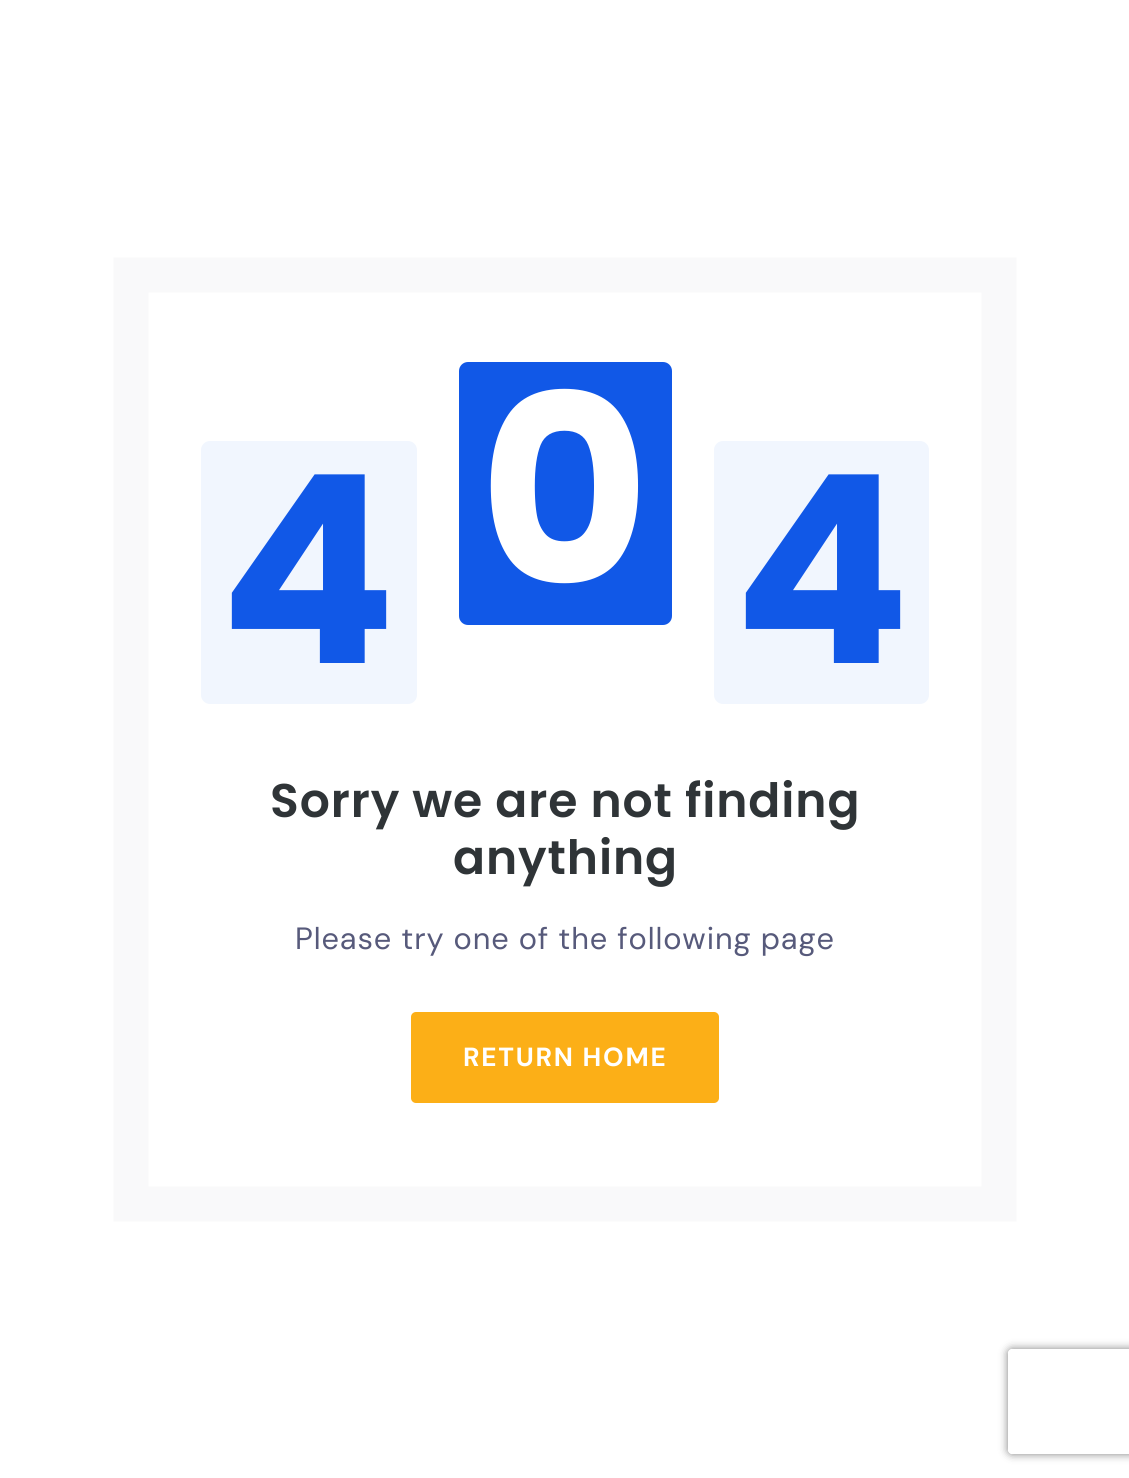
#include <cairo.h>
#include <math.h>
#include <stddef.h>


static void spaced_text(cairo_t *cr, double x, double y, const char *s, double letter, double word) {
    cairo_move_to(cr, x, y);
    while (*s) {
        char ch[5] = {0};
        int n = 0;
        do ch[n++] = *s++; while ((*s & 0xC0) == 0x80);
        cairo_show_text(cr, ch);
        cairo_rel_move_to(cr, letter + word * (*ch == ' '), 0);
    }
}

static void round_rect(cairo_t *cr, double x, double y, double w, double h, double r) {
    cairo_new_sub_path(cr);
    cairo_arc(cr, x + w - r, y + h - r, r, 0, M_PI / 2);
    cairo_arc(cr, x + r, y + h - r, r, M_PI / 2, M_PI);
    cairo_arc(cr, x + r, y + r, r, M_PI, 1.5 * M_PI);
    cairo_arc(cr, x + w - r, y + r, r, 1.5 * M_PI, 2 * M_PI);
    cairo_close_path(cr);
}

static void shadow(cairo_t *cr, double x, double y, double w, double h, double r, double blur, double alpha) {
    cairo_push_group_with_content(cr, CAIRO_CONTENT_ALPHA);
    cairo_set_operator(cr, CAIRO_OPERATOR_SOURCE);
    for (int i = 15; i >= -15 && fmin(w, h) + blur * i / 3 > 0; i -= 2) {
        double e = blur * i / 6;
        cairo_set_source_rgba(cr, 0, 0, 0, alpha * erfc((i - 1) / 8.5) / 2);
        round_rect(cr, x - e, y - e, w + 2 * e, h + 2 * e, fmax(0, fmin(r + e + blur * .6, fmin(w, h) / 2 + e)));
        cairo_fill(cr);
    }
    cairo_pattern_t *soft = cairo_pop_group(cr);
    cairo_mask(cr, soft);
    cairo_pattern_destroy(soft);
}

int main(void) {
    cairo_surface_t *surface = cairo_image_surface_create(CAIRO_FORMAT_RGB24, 1129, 1478);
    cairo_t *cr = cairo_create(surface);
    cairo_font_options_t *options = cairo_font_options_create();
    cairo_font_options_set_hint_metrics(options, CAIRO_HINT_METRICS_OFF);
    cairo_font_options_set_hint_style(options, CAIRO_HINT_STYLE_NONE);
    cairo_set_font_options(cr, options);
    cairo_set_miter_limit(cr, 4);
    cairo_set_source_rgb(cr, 1, 1, 1);
    cairo_paint(cr);
    cairo_new_path(cr);
    cairo_move_to(cr, 131, 275);
    cairo_line_to(cr, 999, 275);
    cairo_line_to(cr, 999, 1204);
    cairo_line_to(cr, 131, 1204);
    cairo_close_path(cr);
    cairo_set_source_rgb(cr, 0.973, 0.976, 0.98);
    cairo_set_line_width(cr, 35);
    cairo_stroke(cr);
    cairo_set_source_rgb(cr, 0.945, 0.961, 0.996);
    round_rect(cr, 201, 441, 216, 263, 9);
    cairo_fill(cr);
    cairo_select_font_face(cr, "Poppins", CAIRO_FONT_SLANT_NORMAL, CAIRO_FONT_WEIGHT_BOLD);
    cairo_set_font_size(cr, 262);
    cairo_set_source_rgb(cr, 0.067, 0.345, 0.906);
    spaced_text(cr, 219, 663, "4", 0.9, 0);
    round_rect(cr, 459, 362, 213, 263, 9);
    cairo_fill(cr);
    cairo_set_source_rgb(cr, 1, 1, 1);
    spaced_text(cr, 479, 584, "0", 0.9, 0);
    cairo_set_source_rgb(cr, 0.945, 0.961, 0.996);
    round_rect(cr, 714, 441, 215, 263, 9);
    cairo_fill(cr);
    cairo_set_source_rgb(cr, 0.067, 0.345, 0.906);
    spaced_text(cr, 733, 663, "4", 0.9, 0);
    cairo_select_font_face(cr, "Poppins SemiBold", CAIRO_FONT_SLANT_NORMAL, CAIRO_FONT_WEIGHT_NORMAL);
    cairo_set_font_size(cr, 47.25);
    cairo_set_source_rgb(cr, 0.184, 0.204, 0.216);
    spaced_text(cr, 270, 817, "Sorry we are not finding", 0.9, 0);
    spaced_text(cr, 453, 874, "anything", 0.9, 0);
    cairo_select_font_face(cr, "DM Sans", CAIRO_FONT_SLANT_NORMAL, CAIRO_FONT_WEIGHT_NORMAL);
    cairo_set_font_size(cr, 30.75);
    cairo_set_source_rgb(cr, 0.341, 0.353, 0.482);
    spaced_text(cr, 295, 949, "Please try one of the following page", 0.9, 0);
    cairo_set_source_rgb(cr, 0.988, 0.686, 0.09);
    round_rect(cr, 411, 1012, 308, 91, 5);
    cairo_fill(cr);
    cairo_select_font_face(cr, "DM Sans", CAIRO_FONT_SLANT_NORMAL, CAIRO_FONT_WEIGHT_BOLD);
    cairo_set_font_size(cr, 26.25);
    cairo_set_source_rgb(cr, 1, 1, 1);
    spaced_text(cr, 463, 1066, "RETURN HOME", 1.75, 0);
    cairo_save(cr);
    cairo_set_fill_rule(cr, CAIRO_FILL_RULE_EVEN_ODD);
    cairo_new_path(cr);
    cairo_move_to(cr, 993, 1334);
    cairo_line_to(cr, 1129, 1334);
    cairo_line_to(cr, 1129, 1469);
    cairo_line_to(cr, 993, 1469);
    cairo_close_path(cr);
    cairo_move_to(cr, 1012, 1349);
    cairo_line_to(cr, 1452, 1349);
    cairo_curve_to(cr, 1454, 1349, 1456, 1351, 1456, 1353);
    cairo_line_to(cr, 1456, 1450);
    cairo_curve_to(cr, 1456, 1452, 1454, 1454, 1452, 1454);
    cairo_line_to(cr, 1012, 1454);
    cairo_curve_to(cr, 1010, 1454, 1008, 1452, 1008, 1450);
    cairo_line_to(cr, 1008, 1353);
    cairo_curve_to(cr, 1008, 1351, 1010, 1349, 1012, 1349);
    cairo_close_path(cr);
    cairo_clip(cr);
    cairo_set_source_rgb(cr, 0.502, 0.502, 0.502);
    shadow(cr, 1008, 1349, 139, 105, 4, 4.5, 1);
    cairo_restore(cr);
    cairo_surface_write_to_png(surface, "page.png");
    cairo_font_options_destroy(options);
    cairo_destroy(cr);
    cairo_surface_destroy(surface);
    return 0;
}
